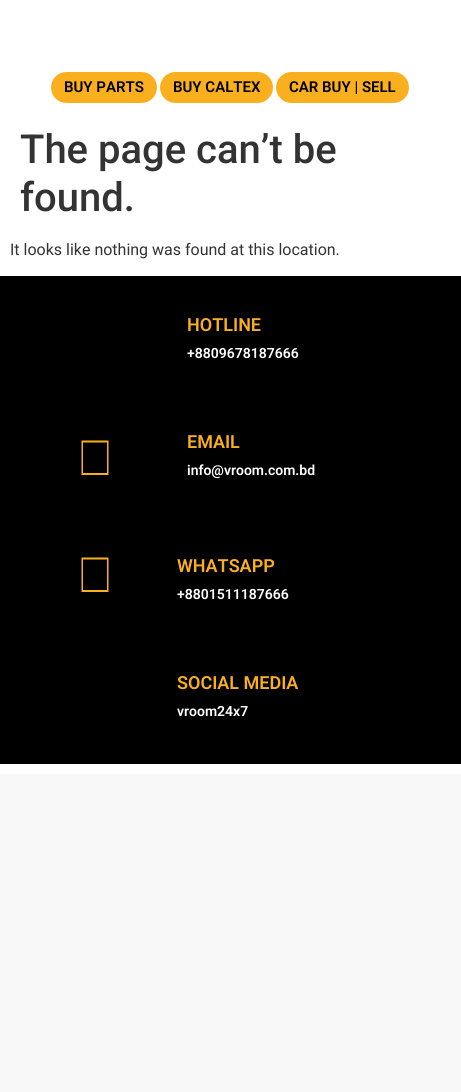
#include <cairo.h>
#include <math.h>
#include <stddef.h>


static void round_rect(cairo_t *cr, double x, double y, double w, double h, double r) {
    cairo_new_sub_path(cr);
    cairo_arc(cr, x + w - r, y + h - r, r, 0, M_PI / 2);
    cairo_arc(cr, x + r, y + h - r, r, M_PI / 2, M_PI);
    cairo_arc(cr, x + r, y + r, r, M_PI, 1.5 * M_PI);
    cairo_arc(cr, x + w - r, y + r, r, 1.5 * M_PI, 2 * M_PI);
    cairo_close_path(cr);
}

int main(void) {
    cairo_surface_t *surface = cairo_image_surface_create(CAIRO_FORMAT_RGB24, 461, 1092);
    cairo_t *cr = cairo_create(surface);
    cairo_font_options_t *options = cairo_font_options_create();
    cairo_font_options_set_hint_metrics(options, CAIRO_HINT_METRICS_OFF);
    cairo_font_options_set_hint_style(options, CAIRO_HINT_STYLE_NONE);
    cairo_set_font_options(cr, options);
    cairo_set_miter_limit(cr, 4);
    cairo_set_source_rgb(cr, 1, 1, 1);
    cairo_paint(cr);
    cairo_set_source_rgb(cr, 0.98, 0.686, 0.118);
    round_rect(cr, 52.5, 73.5, 103, 28, 14);
    cairo_fill_preserve(cr);
    cairo_set_line_width(cr, 3);
    cairo_stroke(cr);
    cairo_select_font_face(cr, "Roboto SemiBold", CAIRO_FONT_SLANT_NORMAL, CAIRO_FONT_WEIGHT_NORMAL);
    cairo_set_font_size(cr, 15);
    cairo_set_source_rgb(cr, 0, 0, 0);
    cairo_move_to(cr, 64, 92);
    cairo_show_text(cr, "BUY PARTS");
    cairo_set_source_rgb(cr, 0.98, 0.686, 0.118);
    round_rect(cr, 161.5, 73.5, 110, 28, 14);
    cairo_fill_preserve(cr);
    cairo_stroke(cr);
    cairo_set_source_rgb(cr, 0, 0, 0);
    cairo_move_to(cr, 173, 92);
    cairo_show_text(cr, "BUY CALTEX");
    cairo_set_source_rgb(cr, 0.98, 0.686, 0.118);
    round_rect(cr, 277.5, 73.5, 130, 28, 14);
    cairo_fill_preserve(cr);
    cairo_stroke(cr);
    cairo_set_source_rgb(cr, 0, 0, 0);
    cairo_move_to(cr, 289, 92);
    cairo_show_text(cr, "CAR BUY | SELL");
    cairo_select_font_face(cr, "Roboto Medium", CAIRO_FONT_SLANT_NORMAL, CAIRO_FONT_WEIGHT_NORMAL);
    cairo_set_font_size(cr, 40);
    cairo_set_source_rgb(cr, 0.2, 0.2, 0.2);
    cairo_move_to(cr, 20, 163);
    cairo_show_text(cr, "The page can’t be");
    cairo_move_to(cr, 20, 211);
    cairo_show_text(cr, "found.");
    cairo_select_font_face(cr, "Roboto", CAIRO_FONT_SLANT_NORMAL, CAIRO_FONT_WEIGHT_NORMAL);
    cairo_set_font_size(cr, 16);
    cairo_move_to(cr, 10, 255);
    cairo_show_text(cr, "It looks like nothing was found at this location.");
    cairo_set_source_rgb(cr, 0, 0, 0);
    cairo_rectangle(cr, 0, 276, 461, 488);
    cairo_fill(cr);
    cairo_select_font_face(cr, "Roboto SemiBold", CAIRO_FONT_SLANT_NORMAL, CAIRO_FONT_WEIGHT_NORMAL);
    cairo_set_font_size(cr, 18);
    cairo_set_source_rgb(cr, 0.976, 0.686, 0.118);
    cairo_move_to(cr, 187, 331);
    cairo_show_text(cr, "HOTLINE");
    cairo_set_font_size(cr, 14);
    cairo_set_source_rgb(cr, 1, 1, 1);
    cairo_move_to(cr, 187, 358);
    cairo_show_text(cr, "+8809678187666");
    cairo_set_source_rgb(cr, 0.976, 0.686, 0.118);
    cairo_new_path(cr);
    cairo_move_to(cr, 81.5, 440.5);
    cairo_line_to(cr, 108.5, 440.5);
    cairo_line_to(cr, 108.5, 475);
    cairo_line_to(cr, 81.5, 475);
    cairo_close_path(cr);
    cairo_move_to(cr, 83, 442.5);
    cairo_line_to(cr, 83, 473);
    cairo_line_to(cr, 107, 473);
    cairo_line_to(cr, 107, 442.5);
    cairo_close_path(cr);
    cairo_fill(cr);
    cairo_set_font_size(cr, 18);
    cairo_move_to(cr, 187, 448);
    cairo_show_text(cr, "EMAIL");
    cairo_set_font_size(cr, 14);
    cairo_set_source_rgb(cr, 1, 1, 1);
    cairo_move_to(cr, 187, 475);
    cairo_show_text(cr, "info@vroom.com.bd");
    cairo_set_source_rgb(cr, 0.976, 0.686, 0.118);
    cairo_new_path(cr);
    cairo_move_to(cr, 81.5, 557.5);
    cairo_line_to(cr, 108.5, 557.5);
    cairo_line_to(cr, 108.5, 592);
    cairo_line_to(cr, 81.5, 592);
    cairo_close_path(cr);
    cairo_move_to(cr, 83, 559.5);
    cairo_line_to(cr, 83, 590);
    cairo_line_to(cr, 107, 590);
    cairo_line_to(cr, 107, 559.5);
    cairo_close_path(cr);
    cairo_fill(cr);
    cairo_set_font_size(cr, 18);
    cairo_move_to(cr, 177, 572);
    cairo_show_text(cr, "WHATSAPP");
    cairo_set_font_size(cr, 14);
    cairo_set_source_rgb(cr, 1, 1, 1);
    cairo_move_to(cr, 177, 599);
    cairo_show_text(cr, "+8801511187666");
    cairo_set_font_size(cr, 18);
    cairo_set_source_rgb(cr, 0.976, 0.686, 0.118);
    cairo_move_to(cr, 177, 689);
    cairo_show_text(cr, "SOCIAL MEDIA");
    cairo_set_font_size(cr, 14);
    cairo_set_source_rgb(cr, 1, 1, 1);
    cairo_move_to(cr, 177, 716);
    cairo_show_text(cr, "vroom24x7");
    cairo_set_source_rgb(cr, 0.969, 0.969, 0.969);
    cairo_rectangle(cr, 0, 774, 461, 318);
    cairo_fill(cr);
    cairo_surface_write_to_png(surface, "page.png");
    cairo_font_options_destroy(options);
    cairo_destroy(cr);
    cairo_surface_destroy(surface);
    return 0;
}
